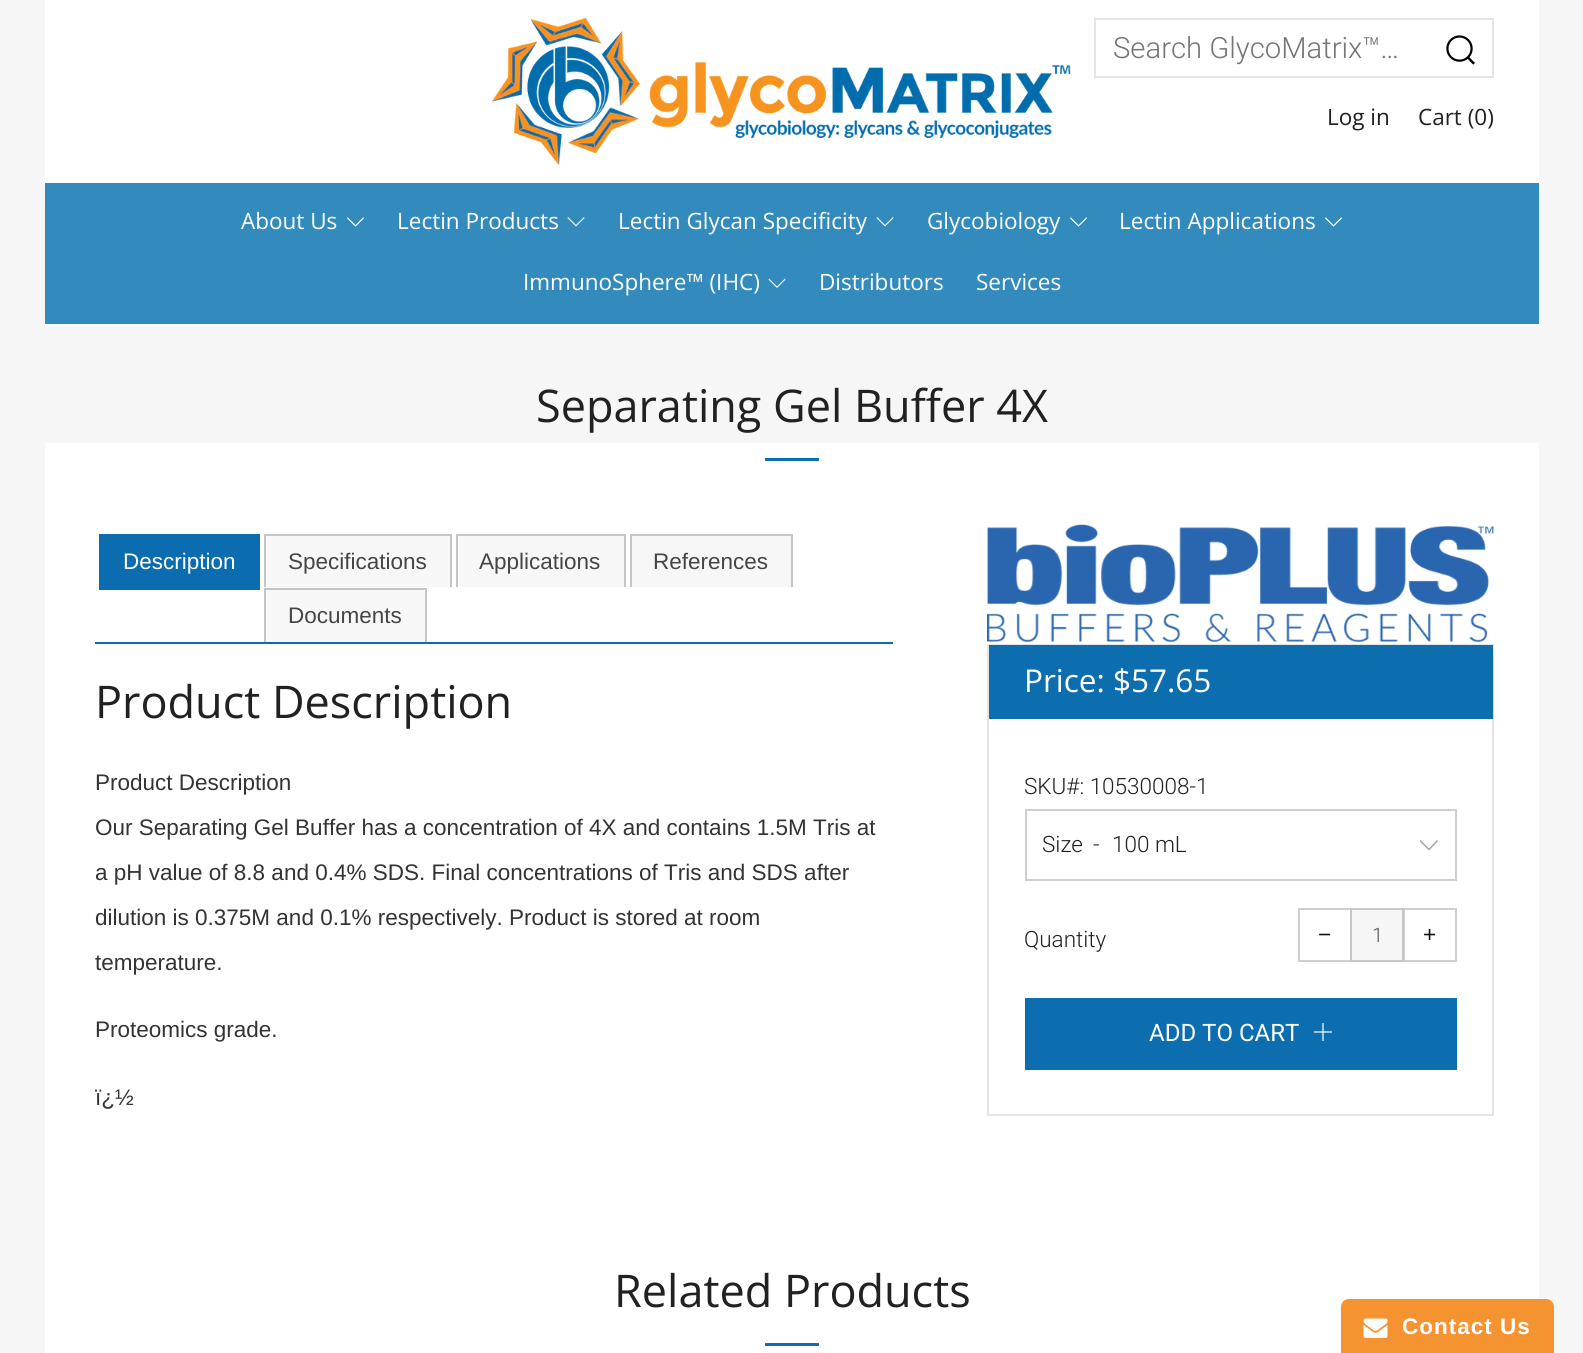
#include <cairo.h>
#include <math.h>
#include <stddef.h>


static void spaced_text(cairo_t *cr, double x, double y, const char *s, double letter, double word) {
    cairo_move_to(cr, x, y);
    while (*s) {
        char ch[5] = {0};
        int n = 0;
        do ch[n++] = *s++; while ((*s & 0xC0) == 0x80);
        cairo_show_text(cr, ch);
        cairo_rel_move_to(cr, letter + word * (*ch == ' '), 0);
    }
}

static void picture(cairo_t *cr, const char *path, double x, double y, double w, double h) {
    cairo_surface_t *image = cairo_image_surface_create_from_png(path);
    cairo_save(cr);
    cairo_set_source_surface(cr, image, x, y);
    cairo_rectangle(cr, x, y, w, h);
    cairo_fill(cr);
    cairo_restore(cr);
    cairo_surface_destroy(image);
}

int main(void) {
    cairo_surface_t *surface = cairo_image_surface_create(CAIRO_FORMAT_RGB24, 1583, 1353);
    cairo_t *cr = cairo_create(surface);
    cairo_font_options_t *options = cairo_font_options_create();
    cairo_font_options_set_hint_metrics(options, CAIRO_HINT_METRICS_OFF);
    cairo_font_options_set_hint_style(options, CAIRO_HINT_STYLE_NONE);
    cairo_set_font_options(cr, options);
    cairo_set_miter_limit(cr, 4);
    cairo_set_source_rgb(cr, 0.961, 0.961, 0.961);
    cairo_paint(cr);
    cairo_set_source_rgb(cr, 1, 1, 1);
    cairo_rectangle(cr, 45, 0, 1494, 326);
    cairo_fill(cr);
    picture(cr, "img1.png", 492, 18, 579, 147);
    cairo_set_source_rgb(cr, 0.2, 0.541, 0.741);
    cairo_rectangle(cr, 45, 183, 1494, 141);
    cairo_fill(cr);
    cairo_rectangle(cr, 1095, 19, 398, 58);
    cairo_set_source_rgb(cr, 0.894, 0.894, 0.894);
    cairo_stroke(cr);
    cairo_select_font_face(cr, "Roboto Light", CAIRO_FONT_SLANT_NORMAL, CAIRO_FONT_WEIGHT_NORMAL);
    cairo_set_font_size(cr, 29.25);
    cairo_set_source_rgb(cr, 0.459, 0.459, 0.459);
    cairo_move_to(cr, 1113, 58);
    cairo_show_text(cr, "Search GlycoMatrix™…");
    picture(cr, "img2.png", 1446, 35, 29, 30);
    cairo_select_font_face(cr, "Open Sans", CAIRO_FONT_SLANT_NORMAL, CAIRO_FONT_WEIGHT_NORMAL);
    cairo_set_font_size(cr, 22.5);
    cairo_set_source_rgb(cr, 0.129, 0.129, 0.129);
    cairo_move_to(cr, 1327, 125);
    cairo_show_text(cr, "Log in");
    cairo_move_to(cr, 1418, 125);
    cairo_show_text(cr, "Cart (0)");
    cairo_set_source_rgb(cr, 1, 1, 1);
    cairo_move_to(cr, 241, 229);
    cairo_show_text(cr, "About Us");
    picture(cr, "img3.png", 347, 217, 17, 10);
    cairo_move_to(cr, 397, 229);
    cairo_show_text(cr, "Lectin Products");
    cairo_new_path(cr);
    cairo_move_to(cr, 568, 217);
    cairo_line_to(cr, 567.5, 218);
    cairo_line_to(cr, 576, 226.5);
    cairo_line_to(cr, 584.5, 218);
    cairo_line_to(cr, 584, 217);
    cairo_line_to(cr, 576, 225);
    cairo_close_path(cr);
    cairo_fill(cr);
    cairo_move_to(cr, 618, 229);
    cairo_show_text(cr, "Lectin Glycan Specificity");
    cairo_new_path(cr);
    cairo_move_to(cr, 877, 217);
    cairo_line_to(cr, 876.5, 218);
    cairo_line_to(cr, 885, 226.5);
    cairo_line_to(cr, 893.5, 218);
    cairo_line_to(cr, 893, 217);
    cairo_line_to(cr, 885, 225);
    cairo_close_path(cr);
    cairo_fill(cr);
    cairo_move_to(cr, 927, 229);
    cairo_show_text(cr, "Glycobiology");
    picture(cr, "img3.png", 1070, 217, 17, 10);
    cairo_move_to(cr, 1119, 229);
    cairo_show_text(cr, "Lectin Applications");
    picture(cr, "img3.png", 1325, 217, 17, 10);
    cairo_move_to(cr, 523, 290);
    cairo_show_text(cr, "ImmunoSphere™ (IHC)");
    cairo_new_path(cr);
    cairo_move_to(cr, 769, 278.5);
    cairo_line_to(cr, 768.5, 279.5);
    cairo_line_to(cr, 777, 288);
    cairo_line_to(cr, 785.5, 279.5);
    cairo_line_to(cr, 785, 278.5);
    cairo_line_to(cr, 777, 286.5);
    cairo_close_path(cr);
    cairo_fill(cr);
    cairo_move_to(cr, 819, 290);
    cairo_show_text(cr, "Distributors");
    cairo_move_to(cr, 976, 290);
    cairo_show_text(cr, "Services");
    cairo_rectangle(cr, 45, 443, 1494, 910);
    cairo_fill(cr);
    cairo_set_font_size(cr, 45);
    cairo_set_source_rgb(cr, 0.129, 0.129, 0.129);
    cairo_move_to(cr, 536, 422);
    cairo_show_text(cr, "Separating Gel Buffer 4X");
    cairo_set_source_rgb(cr, 0.047, 0.431, 0.686);
    cairo_rectangle(cr, 765, 458, 54, 3);
    cairo_fill(cr);
    cairo_set_source_rgb(cr, 0.043, 0.427, 0.686);
    cairo_rectangle(cr, 95, 642, 798, 2);
    cairo_fill(cr);
    cairo_rectangle(cr, 99, 534, 161, 56);
    cairo_fill(cr);
    cairo_select_font_face(cr, "Liberation Sans", CAIRO_FONT_SLANT_NORMAL, CAIRO_FONT_WEIGHT_NORMAL);
    cairo_set_font_size(cr, 22.5);
    cairo_set_source_rgb(cr, 1, 1, 1);
    cairo_move_to(cr, 123, 569);
    cairo_show_text(cr, "Description");
    cairo_set_source_rgb(cr, 0.965, 0.965, 0.965);
    cairo_rectangle(cr, 266, 536, 184, 51);
    cairo_fill(cr);
    cairo_set_source_rgb(cr, 0.773, 0.773, 0.773);
    cairo_rectangle(cr, 264, 534, 188, 2);
    cairo_fill(cr);
    cairo_rectangle(cr, 450, 534, 2, 53);
    cairo_fill(cr);
    cairo_rectangle(cr, 264, 534, 2, 53);
    cairo_fill(cr);
    cairo_set_source_rgb(cr, 0.271, 0.271, 0.271);
    cairo_move_to(cr, 288, 569);
    cairo_show_text(cr, "Specifications");
    cairo_set_source_rgb(cr, 0.965, 0.965, 0.965);
    cairo_rectangle(cr, 458, 536, 166, 51);
    cairo_fill(cr);
    cairo_set_source_rgb(cr, 0.773, 0.773, 0.773);
    cairo_rectangle(cr, 456, 534, 170, 2);
    cairo_fill(cr);
    cairo_rectangle(cr, 624, 534, 2, 53);
    cairo_fill(cr);
    cairo_rectangle(cr, 456, 534, 2, 53);
    cairo_fill(cr);
    cairo_set_source_rgb(cr, 0.271, 0.271, 0.271);
    cairo_move_to(cr, 479, 569);
    cairo_show_text(cr, "Applications");
    cairo_set_source_rgb(cr, 0.965, 0.965, 0.965);
    cairo_rectangle(cr, 632, 536, 159, 51);
    cairo_fill(cr);
    cairo_set_source_rgb(cr, 0.773, 0.773, 0.773);
    cairo_rectangle(cr, 630, 534, 162, 2);
    cairo_fill(cr);
    cairo_rectangle(cr, 791, 534, 2, 53);
    cairo_fill(cr);
    cairo_rectangle(cr, 630, 534, 2, 53);
    cairo_fill(cr);
    cairo_set_source_rgb(cr, 0.271, 0.271, 0.271);
    cairo_move_to(cr, 653, 569);
    cairo_show_text(cr, "References");
    cairo_set_source_rgb(cr, 0.965, 0.965, 0.965);
    cairo_rectangle(cr, 266, 590, 159, 52);
    cairo_fill(cr);
    cairo_set_source_rgb(cr, 0.773, 0.773, 0.773);
    cairo_rectangle(cr, 264, 588, 162, 2);
    cairo_fill(cr);
    cairo_rectangle(cr, 425, 588, 2, 54);
    cairo_fill(cr);
    cairo_rectangle(cr, 264, 588, 2, 54);
    cairo_fill(cr);
    cairo_set_source_rgb(cr, 0.271, 0.271, 0.271);
    cairo_move_to(cr, 288, 623);
    cairo_show_text(cr, "Documents");
    cairo_select_font_face(cr, "Open Sans", CAIRO_FONT_SLANT_NORMAL, CAIRO_FONT_WEIGHT_NORMAL);
    cairo_set_font_size(cr, 45);
    cairo_set_source_rgb(cr, 0.129, 0.129, 0.129);
    cairo_move_to(cr, 95, 718);
    cairo_show_text(cr, "Product Description");
    cairo_select_font_face(cr, "Liberation Sans", CAIRO_FONT_SLANT_NORMAL, CAIRO_FONT_WEIGHT_NORMAL);
    cairo_set_font_size(cr, 22.5);
    cairo_set_source_rgb(cr, 0.2, 0.2, 0.2);
    cairo_move_to(cr, 95, 790);
    cairo_show_text(cr, "Product Description");
    cairo_move_to(cr, 95, 835);
    cairo_show_text(cr, "Our Separating Gel Buffer has a concentration of 4X and contains 1.5M Tris at");
    cairo_move_to(cr, 95, 880);
    cairo_show_text(cr, "a pH value of 8.8 and 0.4% SDS. Final concentrations of Tris and SDS after");
    cairo_move_to(cr, 95, 925);
    cairo_show_text(cr, "dilution is 0.375M and 0.1% respectively. Product is stored at room");
    cairo_move_to(cr, 95, 970);
    cairo_show_text(cr, "temperature.");
    cairo_move_to(cr, 95, 1037);
    cairo_show_text(cr, "Proteomics grade.");
    cairo_move_to(cr, 95, 1105);
    cairo_show_text(cr, "ï¿½");
    picture(cr, "img4.png", 987, 524, 507, 118);
    cairo_rectangle(cr, 988, 645, 505, 470);
    cairo_set_source_rgb(cr, 0.894, 0.894, 0.894);
    cairo_stroke(cr);
    cairo_set_source_rgb(cr, 0.047, 0.431, 0.686);
    cairo_rectangle(cr, 989, 645, 504, 74);
    cairo_fill(cr);
    cairo_select_font_face(cr, "Open Sans", CAIRO_FONT_SLANT_NORMAL, CAIRO_FONT_WEIGHT_NORMAL);
    cairo_set_font_size(cr, 31.5);
    cairo_set_source_rgb(cr, 1, 1, 1);
    cairo_move_to(cr, 1024, 692);
    cairo_show_text(cr, "Price: $57.65");
    cairo_select_font_face(cr, "Roboto Light", CAIRO_FONT_SLANT_NORMAL, CAIRO_FONT_WEIGHT_NORMAL);
    cairo_set_font_size(cr, 22.5);
    cairo_set_source_rgb(cr, 0.129, 0.129, 0.129);
    cairo_move_to(cr, 1024, 794);
    cairo_show_text(cr, "SKU#: 10530008-1");
    cairo_rectangle(cr, 1026, 810, 430, 70);
    cairo_set_source_rgb(cr, 0.812, 0.812, 0.812);
    cairo_stroke(cr);
    cairo_set_source_rgb(cr, 0.129, 0.129, 0.129);
    cairo_move_to(cr, 1042, 852);
    cairo_show_text(cr, "Size");
    cairo_move_to(cr, 1093, 852);
    cairo_show_text(cr, "-");
    cairo_move_to(cr, 1112, 852);
    cairo_show_text(cr, "100 mL");
    cairo_set_source_rgb(cr, 0.627, 0.627, 0.627);
    cairo_new_path(cr);
    cairo_move_to(cr, 1420.5, 840);
    cairo_line_to(cr, 1419.5, 841);
    cairo_line_to(cr, 1429, 850.5);
    cairo_line_to(cr, 1438, 841);
    cairo_line_to(cr, 1437, 840);
    cairo_line_to(cr, 1429, 848.5);
    cairo_close_path(cr);
    cairo_fill(cr);
    cairo_set_source_rgb(cr, 0.129, 0.129, 0.129);
    cairo_move_to(cr, 1024, 947);
    cairo_show_text(cr, "Quantity");
    cairo_rectangle(cr, 1299, 909, 52, 52);
    cairo_set_source_rgb(cr, 0.812, 0.812, 0.812);
    cairo_stroke(cr);
    cairo_select_font_face(cr, "Liberation Sans", CAIRO_FONT_SLANT_NORMAL, CAIRO_FONT_WEIGHT_NORMAL);
    cairo_set_source_rgb(cr, 0.067, 0.067, 0.067);
    cairo_move_to(cr, 1318, 942);
    cairo_show_text(cr, "−");
    cairo_set_source_rgb(cr, 0.961, 0.961, 0.961);
    cairo_rectangle(cr, 1351, 909, 52, 52);
    cairo_fill_preserve(cr);
    cairo_set_source_rgb(cr, 0.78, 0.78, 0.78);
    cairo_stroke(cr);
    cairo_select_font_face(cr, "Roboto Light", CAIRO_FONT_SLANT_NORMAL, CAIRO_FONT_WEIGHT_NORMAL);
    cairo_set_font_size(cr, 20);
    cairo_set_source_rgb(cr, 0.333, 0.333, 0.333);
    cairo_move_to(cr, 1372, 942);
    cairo_show_text(cr, "1");
    cairo_set_source_rgba(cr, 1, 1, 1, 0.8);
    cairo_rectangle(cr, 1403, 908, 1, 54);
    cairo_fill(cr);
    cairo_rectangle(cr, 1404, 909, 52, 52);
    cairo_set_source_rgba(cr, 0.067, 0.067, 0.067, 0.2);
    cairo_stroke(cr);
    cairo_select_font_face(cr, "Liberation Sans", CAIRO_FONT_SLANT_NORMAL, CAIRO_FONT_WEIGHT_NORMAL);
    cairo_set_font_size(cr, 22.5);
    cairo_set_source_rgb(cr, 0.067, 0.067, 0.067);
    cairo_move_to(cr, 1423, 942);
    cairo_show_text(cr, "+");
    cairo_set_source_rgb(cr, 0.047, 0.431, 0.686);
    cairo_rectangle(cr, 1025, 998, 432, 72);
    cairo_fill(cr);
    cairo_select_font_face(cr, "Roboto", CAIRO_FONT_SLANT_NORMAL, CAIRO_FONT_WEIGHT_NORMAL);
    cairo_set_font_size(cr, 24);
    cairo_set_source_rgb(cr, 1, 1, 1);
    cairo_move_to(cr, 1149, 1041);
    cairo_show_text(cr, "ADD TO CART");
    picture(cr, "img5.png", 1314, 1023, 18, 18);
    cairo_select_font_face(cr, "Open Sans", CAIRO_FONT_SLANT_NORMAL, CAIRO_FONT_WEIGHT_NORMAL);
    cairo_set_font_size(cr, 45);
    cairo_set_source_rgb(cr, 0.129, 0.129, 0.129);
    cairo_move_to(cr, 614, 1307);
    cairo_show_text(cr, "Related Products");
    cairo_set_source_rgb(cr, 0.047, 0.431, 0.686);
    cairo_rectangle(cr, 765, 1343, 54, 3);
    cairo_fill(cr);
    cairo_set_source_rgb(cr, 0.961, 0.576, 0.192);
    cairo_new_path(cr);
    cairo_move_to(cr, 1349, 1299);
    cairo_line_to(cr, 1546, 1299);
    cairo_curve_to(cr, 1550.5, 1299, 1554, 1302.5, 1554, 1307);
    cairo_line_to(cr, 1554, 1353);
    cairo_line_to(cr, 1341, 1353);
    cairo_line_to(cr, 1341, 1307);
    cairo_curve_to(cr, 1341, 1302.5, 1344.5, 1299, 1349, 1299);
    cairo_close_path(cr);
    cairo_fill(cr);
    picture(cr, "img6.png", 1363, 1318, 25, 20);
    cairo_select_font_face(cr, "Liberation Sans", CAIRO_FONT_SLANT_NORMAL, CAIRO_FONT_WEIGHT_BOLD);
    cairo_set_font_size(cr, 22.5);
    cairo_set_source_rgb(cr, 1, 1, 1);
    spaced_text(cr, 1402, 1334, "Contact Us", 1, 0);
    cairo_surface_write_to_png(surface, "page.png");
    cairo_font_options_destroy(options);
    cairo_destroy(cr);
    cairo_surface_destroy(surface);
    return 0;
}
